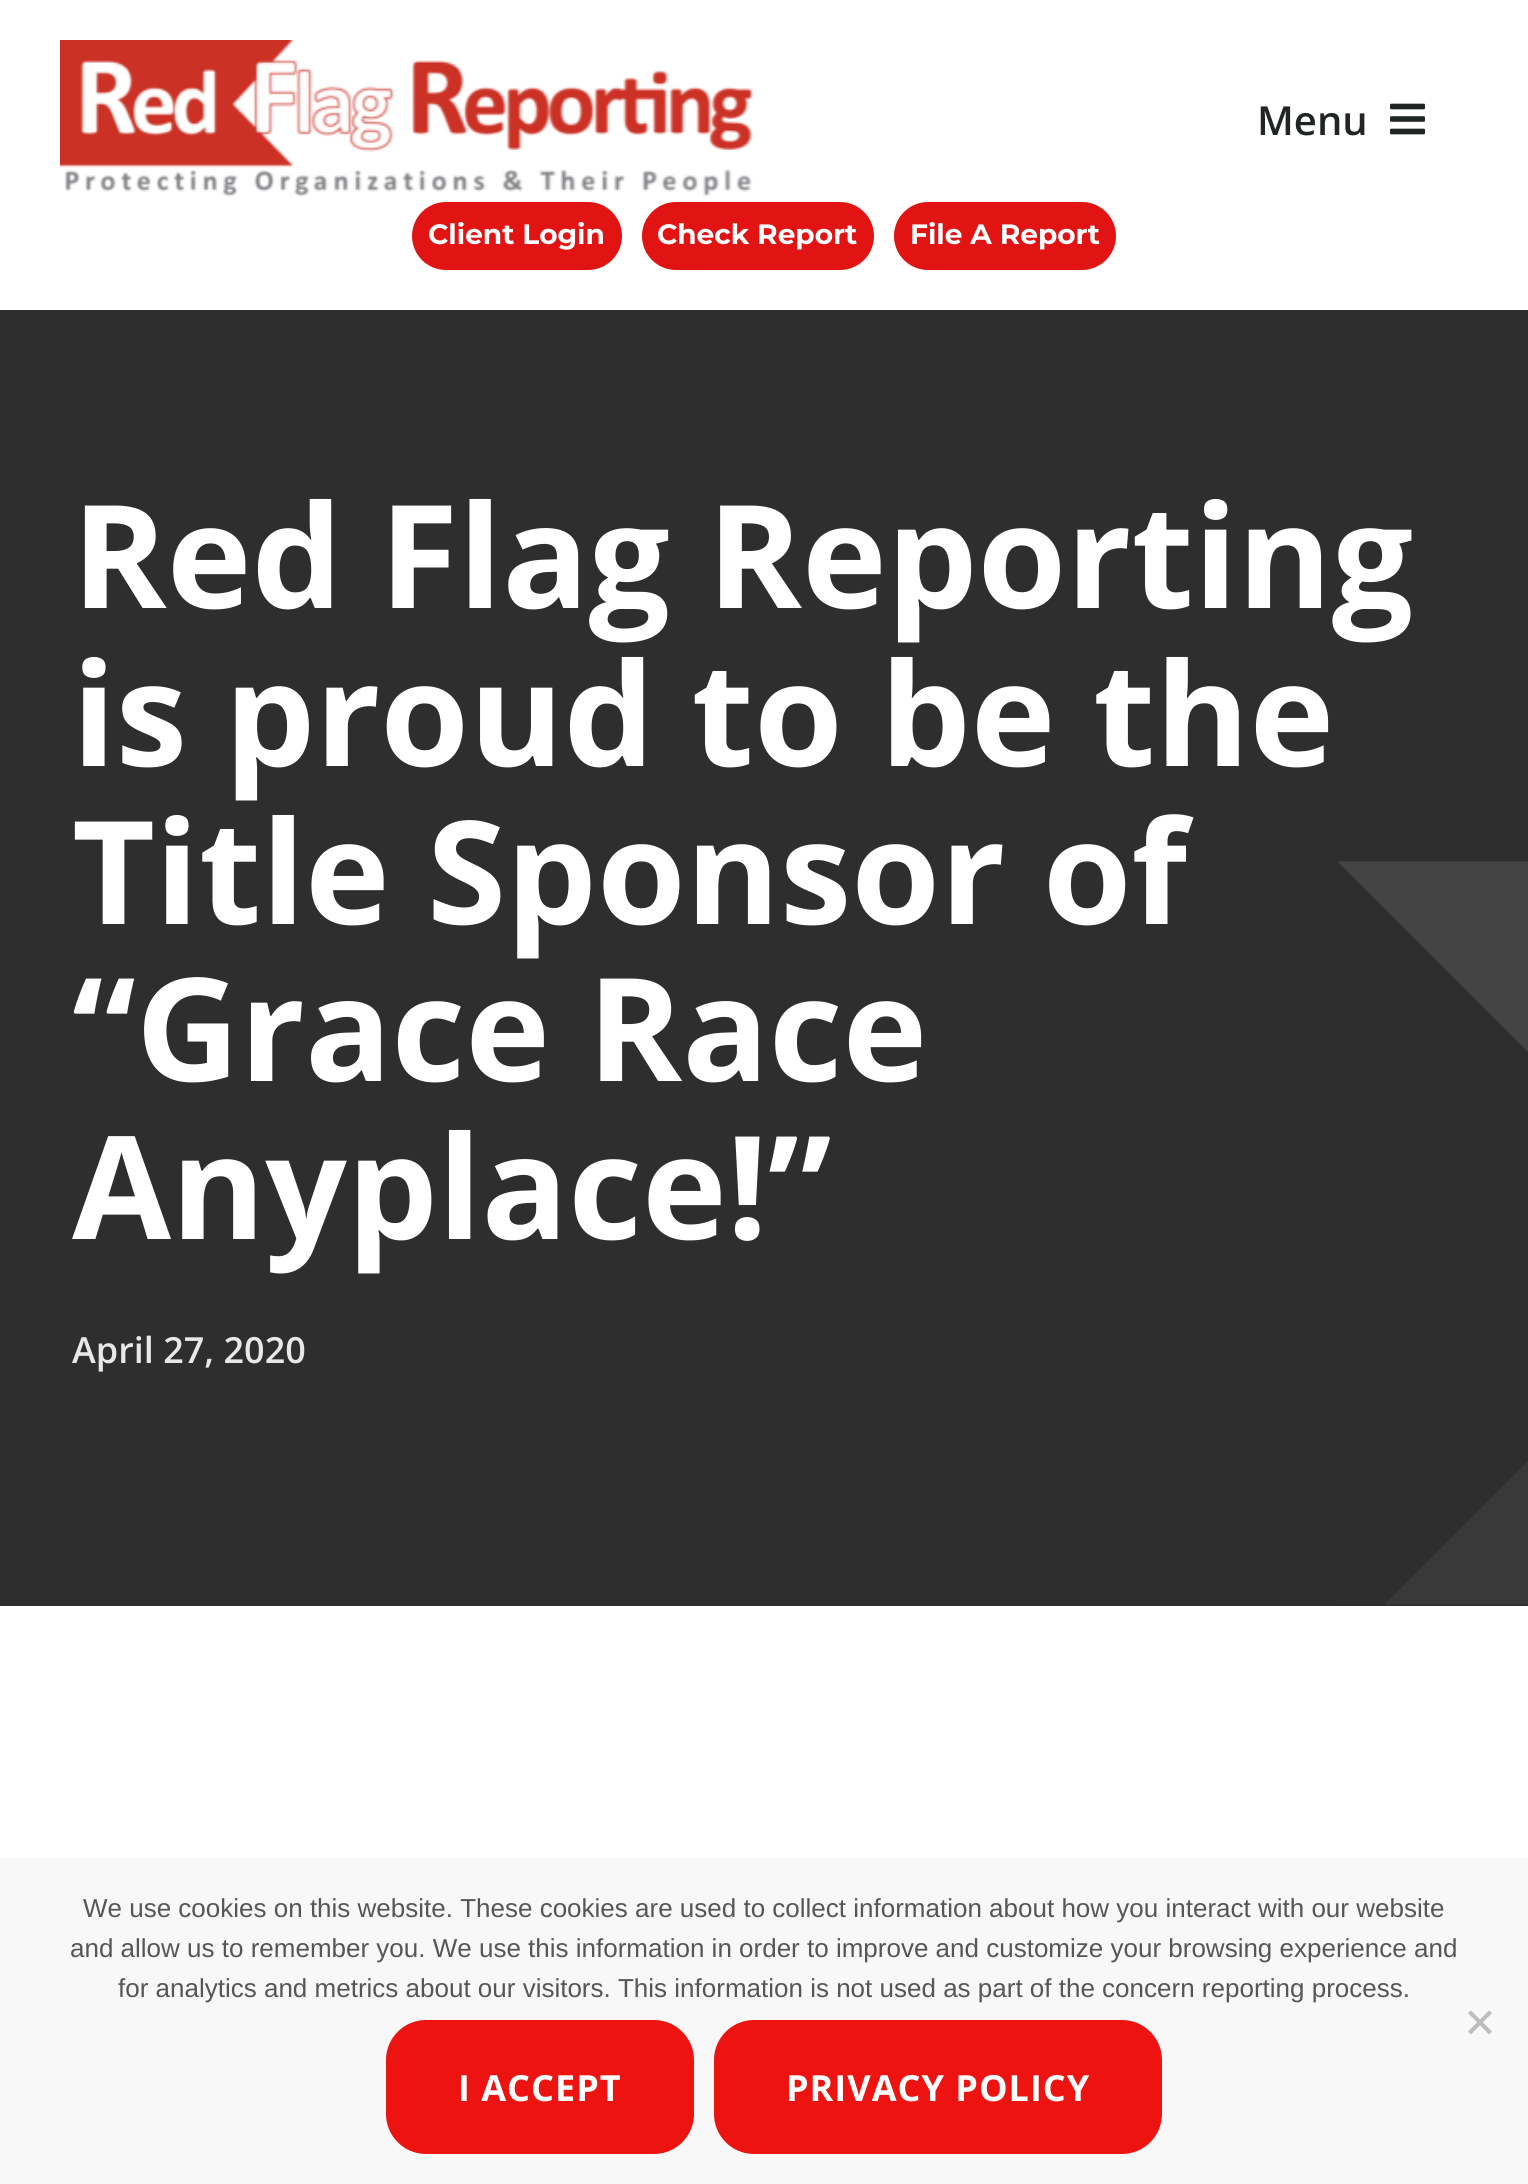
#include <cairo.h>
#include <math.h>
#include <stddef.h>


static void spaced_text(cairo_t *cr, double x, double y, const char *s, double letter, double word) {
    cairo_move_to(cr, x, y);
    while (*s) {
        char ch[5] = {0};
        int n = 0;
        do ch[n++] = *s++; while ((*s & 0xC0) == 0x80);
        cairo_show_text(cr, ch);
        cairo_rel_move_to(cr, letter + word * (*ch == ' '), 0);
    }
}

static void round_rect(cairo_t *cr, double x, double y, double w, double h, double r) {
    cairo_new_sub_path(cr);
    cairo_arc(cr, x + w - r, y + h - r, r, 0, M_PI / 2);
    cairo_arc(cr, x + r, y + h - r, r, M_PI / 2, M_PI);
    cairo_arc(cr, x + r, y + r, r, M_PI, 1.5 * M_PI);
    cairo_arc(cr, x + w - r, y + r, r, 1.5 * M_PI, 2 * M_PI);
    cairo_close_path(cr);
}

static void picture(cairo_t *cr, const char *path, double x, double y, double w, double h) {
    cairo_surface_t *image = cairo_image_surface_create_from_png(path);
    cairo_save(cr);
    cairo_set_source_surface(cr, image, x, y);
    cairo_rectangle(cr, x, y, w, h);
    cairo_fill(cr);
    cairo_restore(cr);
    cairo_surface_destroy(image);
}

int main(void) {
    cairo_surface_t *surface = cairo_image_surface_create(CAIRO_FORMAT_RGB24, 1528, 2184);
    cairo_t *cr = cairo_create(surface);
    cairo_font_options_t *options = cairo_font_options_create();
    cairo_font_options_set_hint_metrics(options, CAIRO_HINT_METRICS_OFF);
    cairo_font_options_set_hint_style(options, CAIRO_HINT_STYLE_NONE);
    cairo_set_font_options(cr, options);
    cairo_set_miter_limit(cr, 4);
    cairo_set_source_rgb(cr, 1, 1, 1);
    cairo_paint(cr);
    picture(cr, "img1.png", 60, 40, 694, 157);
    cairo_select_font_face(cr, "Open Sans SemiBold", CAIRO_FONT_SLANT_NORMAL, CAIRO_FONT_WEIGHT_NORMAL);
    cairo_set_font_size(cr, 40);
    cairo_set_source_rgb(cr, 0.133, 0.145, 0.145);
    cairo_move_to(cr, 1257, 135);
    cairo_show_text(cr, "Menu");
    picture(cr, "img2.png", 1390, 103, 35, 32);
    cairo_set_source_rgb(cr, 0.886, 0.078, 0.078);
    round_rect(cr, 412, 202, 210, 68, 34);
    cairo_fill(cr);
    cairo_select_font_face(cr, "Montserrat Thin", CAIRO_FONT_SLANT_NORMAL, CAIRO_FONT_WEIGHT_NORMAL);
    cairo_set_font_size(cr, 28);
    cairo_set_source_rgb(cr, 1, 1, 1);
    cairo_move_to(cr, 428, 244);
    cairo_show_text(cr, "Client Login");
    cairo_set_source_rgb(cr, 0.886, 0.078, 0.078);
    round_rect(cr, 642, 202, 232, 68, 34);
    cairo_fill(cr);
    cairo_set_source_rgb(cr, 1, 1, 1);
    cairo_move_to(cr, 657, 244);
    cairo_show_text(cr, "Check Report");
    cairo_set_source_rgb(cr, 0.886, 0.078, 0.078);
    round_rect(cr, 894, 202, 222, 68, 34);
    cairo_fill(cr);
    cairo_set_source_rgb(cr, 1, 1, 1);
    cairo_move_to(cr, 910, 244);
    cairo_show_text(cr, "File A Report");
    cairo_set_source_rgb(cr, 0.18, 0.18, 0.18);
    cairo_rectangle(cr, 0, 310, 1528, 1296);
    cairo_fill(cr);
    picture(cr, "img3.png", 1338, 861, 190, 744);
    cairo_select_font_face(cr, "Open Sans", CAIRO_FONT_SLANT_NORMAL, CAIRO_FONT_WEIGHT_BOLD);
    cairo_set_font_size(cr, 143.5);
    cairo_set_source_rgb(cr, 1, 1, 1);
    cairo_move_to(cr, 72, 608);
    cairo_show_text(cr, "Red Flag Reporting");
    cairo_move_to(cr, 72, 766);
    cairo_show_text(cr, "is proud to be the");
    cairo_move_to(cr, 72, 924);
    cairo_show_text(cr, "Title Sponsor of");
    cairo_move_to(cr, 72, 1081);
    cairo_show_text(cr, "“Grace Race");
    cairo_move_to(cr, 72, 1239);
    cairo_show_text(cr, "Anyplace!”");
    cairo_select_font_face(cr, "Open Sans SemiBold", CAIRO_FONT_SLANT_NORMAL, CAIRO_FONT_WEIGHT_NORMAL);
    cairo_set_font_size(cr, 36);
    cairo_set_source_rgb(cr, 0.906, 0.91, 0.91);
    cairo_move_to(cr, 72, 1363);
    cairo_show_text(cr, "April 27, 2020");
    cairo_set_source_rgb(cr, 0.969, 0.969, 0.969);
    cairo_rectangle(cr, 0, 1858, 1528, 326);
    cairo_fill(cr);
    cairo_select_font_face(cr, "Liberation Sans", CAIRO_FONT_SLANT_NORMAL, CAIRO_FONT_WEIGHT_NORMAL);
    cairo_set_font_size(cr, 26);
    cairo_set_source_rgb(cr, 0.337, 0.337, 0.337);
    cairo_move_to(cr, 83, 1917);
    cairo_show_text(cr, "We use cookies on this website. These cookies are used to collect information about how you interact with our website");
    cairo_move_to(cr, 70, 1957);
    cairo_show_text(cr, "and allow us to remember you. We use this information in order to improve and customize your browsing experience and");
    cairo_move_to(cr, 118, 1997);
    cairo_show_text(cr, "for analytics and metrics about our visitors. This information is not used as part of the concern reporting process.");
    cairo_set_source_rgb(cr, 0.737, 0.737, 0.737);
    cairo_new_path(cr);
    cairo_move_to(cr, 1489, 2010.5);
    cairo_line_to(cr, 1492, 2013);
    cairo_line_to(cr, 1471, 2034.5);
    cairo_line_to(cr, 1468, 2031.5);
    cairo_close_path(cr);
    cairo_fill(cr);
    cairo_new_path(cr);
    cairo_move_to(cr, 1468, 2013);
    cairo_line_to(cr, 1471, 2010.5);
    cairo_line_to(cr, 1492, 2031.5);
    cairo_line_to(cr, 1489, 2034.5);
    cairo_close_path(cr);
    cairo_fill(cr);
    cairo_set_source_rgb(cr, 0.922, 0.078, 0.063);
    round_rect(cr, 386, 2020, 308, 134, 40);
    cairo_fill(cr);
    cairo_select_font_face(cr, "Open Sans", CAIRO_FONT_SLANT_NORMAL, CAIRO_FONT_WEIGHT_BOLD);
    cairo_set_font_size(cr, 36);
    cairo_set_source_rgb(cr, 1, 1, 1);
    spaced_text(cr, 458, 2101, "I ACCEPT", 1, 0);
    cairo_set_source_rgb(cr, 0.922, 0.078, 0.063);
    round_rect(cr, 714, 2020, 448, 134, 40);
    cairo_fill(cr);
    cairo_set_source_rgb(cr, 1, 1, 1);
    spaced_text(cr, 786, 2101, "PRIVACY POLICY", 1, 0);
    cairo_surface_write_to_png(surface, "page.png");
    cairo_font_options_destroy(options);
    cairo_destroy(cr);
    cairo_surface_destroy(surface);
    return 0;
}
